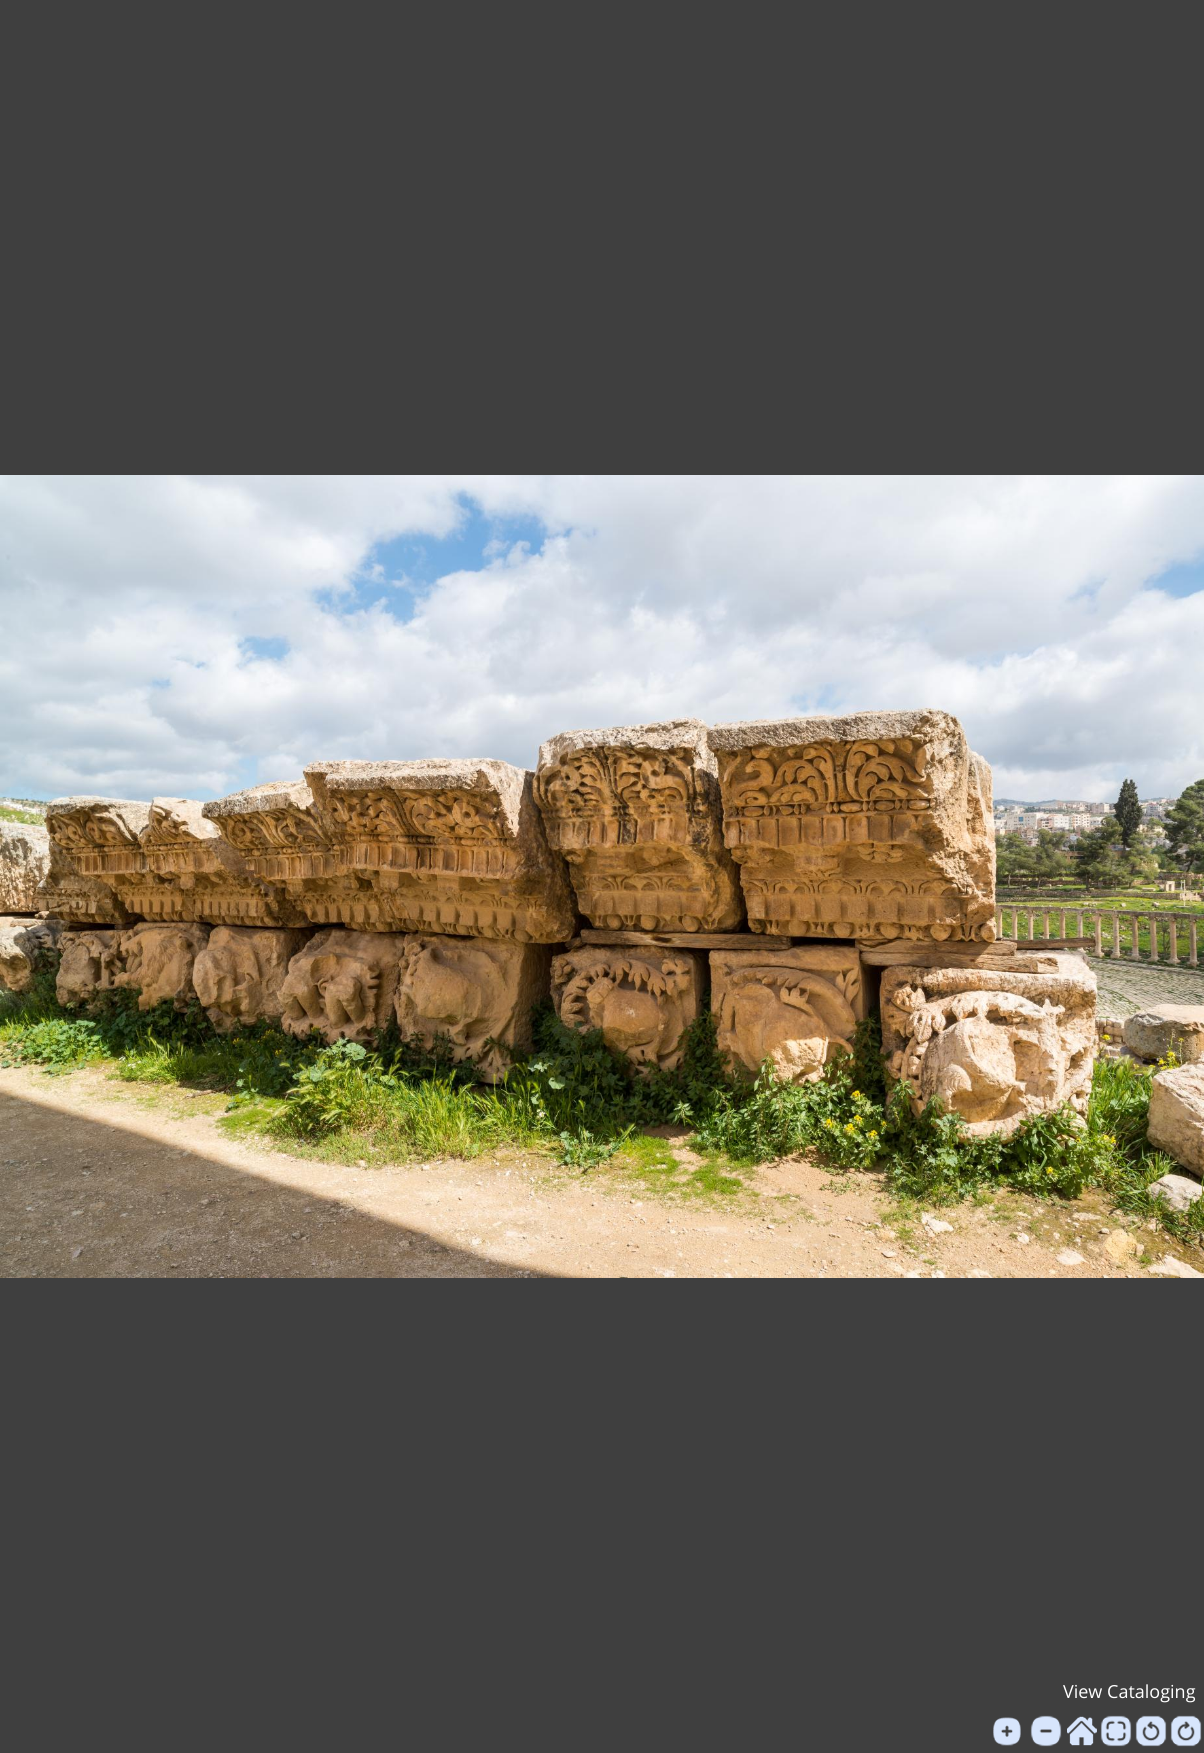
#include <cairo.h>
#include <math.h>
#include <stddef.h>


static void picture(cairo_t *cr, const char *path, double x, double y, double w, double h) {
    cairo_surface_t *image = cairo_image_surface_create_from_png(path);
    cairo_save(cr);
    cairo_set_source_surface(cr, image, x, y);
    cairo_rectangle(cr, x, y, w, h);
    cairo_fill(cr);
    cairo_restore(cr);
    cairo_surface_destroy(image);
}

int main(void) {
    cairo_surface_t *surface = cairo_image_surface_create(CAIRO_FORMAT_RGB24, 1204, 1753);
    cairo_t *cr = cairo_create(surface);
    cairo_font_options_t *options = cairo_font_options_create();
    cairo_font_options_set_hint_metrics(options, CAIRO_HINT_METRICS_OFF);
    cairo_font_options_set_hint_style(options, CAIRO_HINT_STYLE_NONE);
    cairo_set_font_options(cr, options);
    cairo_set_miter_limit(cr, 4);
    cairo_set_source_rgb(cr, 0.247, 0.247, 0.247);
    cairo_paint(cr);
    picture(cr, "img1.png", 0, 475, 1204, 803);
    picture(cr, "img2.png", 993, 1717, 28, 29);
    picture(cr, "img3.png", 1030, 1715, 32, 32);
    picture(cr, "img4.png", 1067, 1716, 30, 30);
    picture(cr, "img5.png", 1100, 1715, 32, 32);
    picture(cr, "img6.png", 1135, 1715, 32, 32);
    picture(cr, "img7.png", 1170, 1715, 32, 32);
    cairo_select_font_face(cr, "Open Sans", CAIRO_FONT_SLANT_NORMAL, CAIRO_FONT_WEIGHT_NORMAL);
    cairo_set_font_size(cr, 18);
    cairo_set_source_rgb(cr, 1, 1, 1);
    cairo_move_to(cr, 1063, 1698);
    cairo_show_text(cr, "View Cataloging");
    cairo_surface_write_to_png(surface, "page.png");
    cairo_font_options_destroy(options);
    cairo_destroy(cr);
    cairo_surface_destroy(surface);
    return 0;
}
